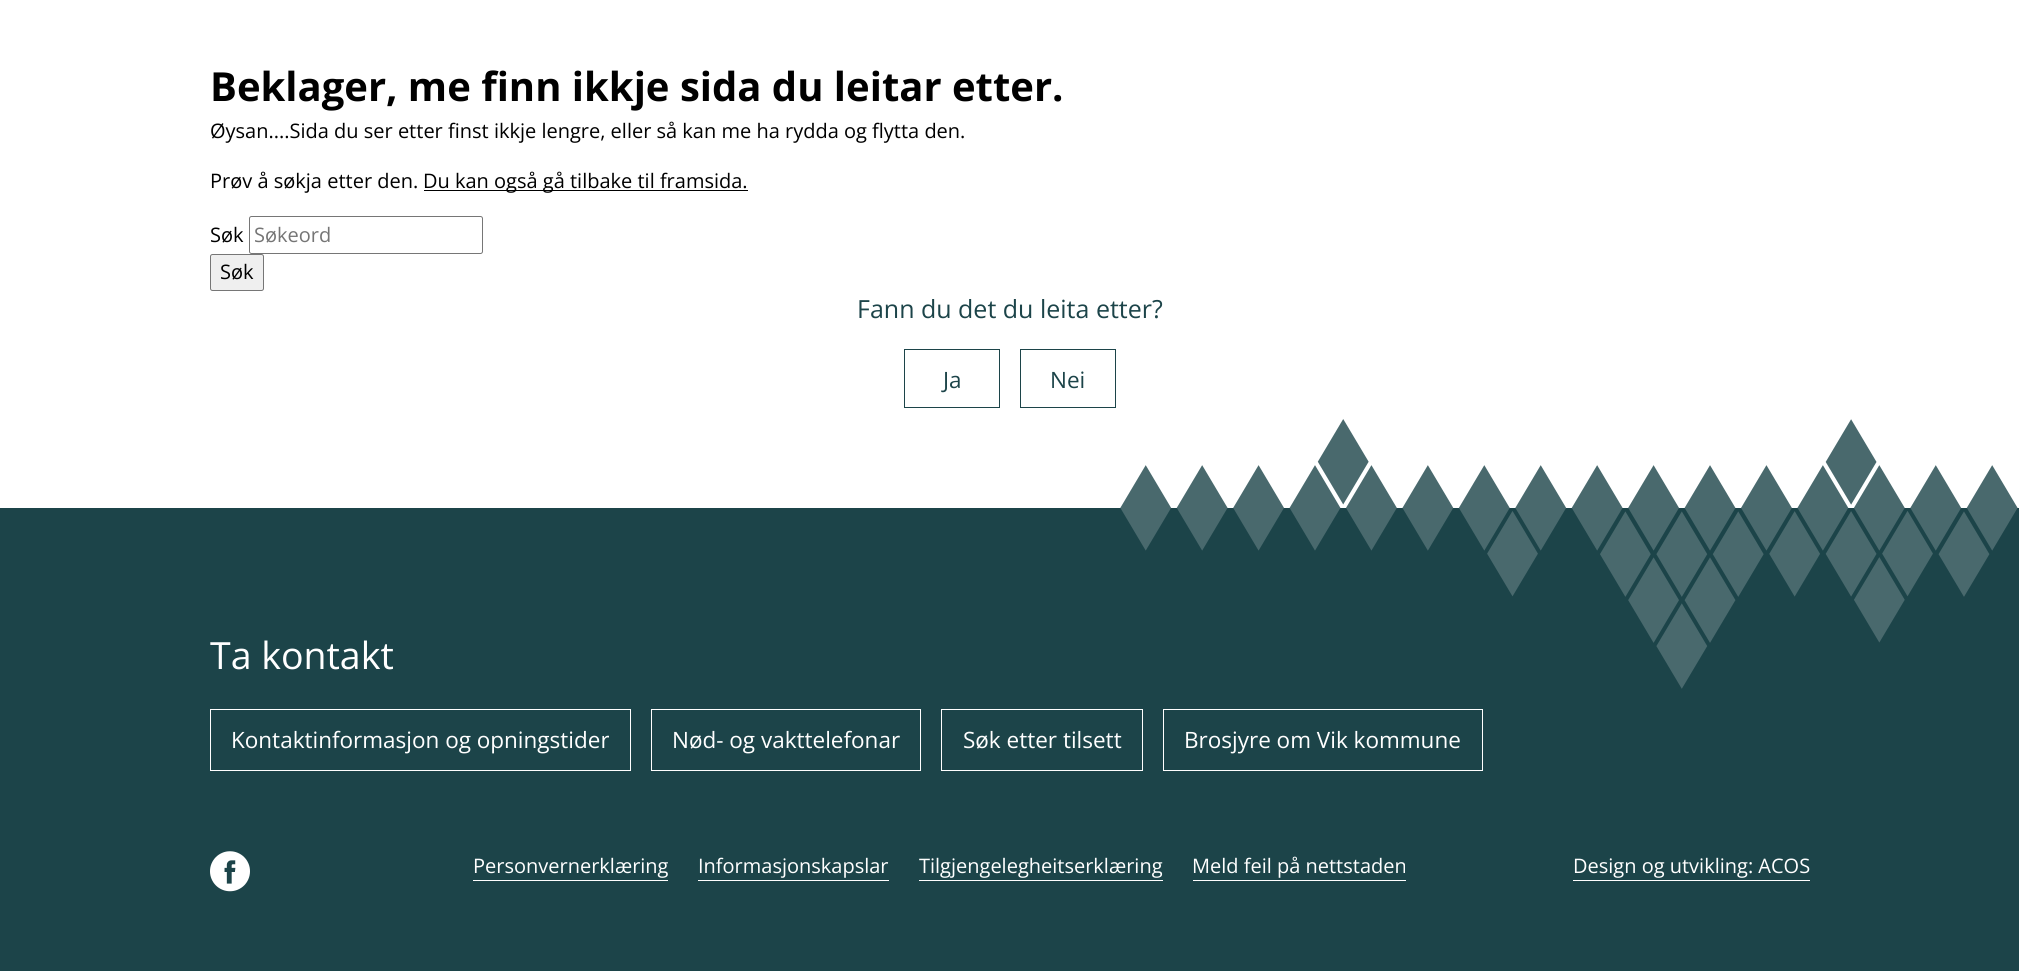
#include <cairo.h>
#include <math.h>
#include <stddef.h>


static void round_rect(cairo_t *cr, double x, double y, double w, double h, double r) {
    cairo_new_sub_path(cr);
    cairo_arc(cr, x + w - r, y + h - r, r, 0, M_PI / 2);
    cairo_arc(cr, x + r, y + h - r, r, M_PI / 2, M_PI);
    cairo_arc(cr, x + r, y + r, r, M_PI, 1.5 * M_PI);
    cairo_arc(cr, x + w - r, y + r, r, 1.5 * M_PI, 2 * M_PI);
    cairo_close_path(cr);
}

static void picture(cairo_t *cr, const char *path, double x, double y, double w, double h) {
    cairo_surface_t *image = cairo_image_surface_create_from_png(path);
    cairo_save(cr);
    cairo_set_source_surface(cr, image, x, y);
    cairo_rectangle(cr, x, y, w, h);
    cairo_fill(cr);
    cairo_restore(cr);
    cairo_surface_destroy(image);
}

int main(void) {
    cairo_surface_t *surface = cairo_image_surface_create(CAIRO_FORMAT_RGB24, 2019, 971);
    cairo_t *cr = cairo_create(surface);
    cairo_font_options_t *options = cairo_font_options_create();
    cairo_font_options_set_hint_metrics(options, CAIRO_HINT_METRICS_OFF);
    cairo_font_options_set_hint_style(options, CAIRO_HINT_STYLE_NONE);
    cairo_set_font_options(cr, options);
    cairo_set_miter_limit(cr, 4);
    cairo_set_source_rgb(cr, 1, 1, 1);
    cairo_paint(cr);
    cairo_select_font_face(cr, "Open Sans", CAIRO_FONT_SLANT_NORMAL, CAIRO_FONT_WEIGHT_BOLD);
    cairo_set_font_size(cr, 40);
    cairo_set_source_rgb(cr, 0, 0, 0);
    cairo_move_to(cr, 210, 101);
    cairo_show_text(cr, "Beklager, me finn ikkje sida du leitar etter.");
    cairo_select_font_face(cr, "Open Sans", CAIRO_FONT_SLANT_NORMAL, CAIRO_FONT_WEIGHT_NORMAL);
    cairo_set_font_size(cr, 20);
    cairo_move_to(cr, 210, 138);
    cairo_show_text(cr, "Øysan....Sida du ser etter finst ikkje lengre, eller så kan me ha rydda og flytta den.");
    cairo_move_to(cr, 210, 188);
    cairo_show_text(cr, "Prøv å søkja etter den.");
    cairo_rectangle(cr, 424, 190, 324, 1);
    cairo_fill(cr);
    cairo_move_to(cr, 423, 188);
    cairo_show_text(cr, "Du kan også gå tilbake til framsida.");
    cairo_move_to(cr, 210, 242);
    cairo_show_text(cr, "Søk");
    round_rect(cr, 249.5, 216.5, 233, 37, 2);
    cairo_set_source_rgb(cr, 0.463, 0.463, 0.463);
    cairo_set_line_width(cr, 1);
    cairo_stroke(cr);
    cairo_set_source_rgb(cr, 0.459, 0.459, 0.459);
    cairo_move_to(cr, 254, 242);
    cairo_show_text(cr, "Søkeord");
    cairo_set_source_rgb(cr, 0.937, 0.937, 0.937);
    round_rect(cr, 210.5, 254.5, 53, 36, 2);
    cairo_fill_preserve(cr);
    cairo_set_source_rgb(cr, 0.463, 0.463, 0.463);
    cairo_stroke(cr);
    cairo_set_source_rgb(cr, 0, 0, 0);
    cairo_move_to(cr, 220, 279);
    cairo_show_text(cr, "Søk");
    cairo_set_font_size(cr, 25);
    cairo_set_source_rgb(cr, 0.11, 0.267, 0.286);
    cairo_move_to(cr, 857, 318);
    cairo_show_text(cr, "Fann du det du leita etter?");
    cairo_rectangle(cr, 904.5, 349.5, 95, 58);
    cairo_stroke(cr);
    cairo_set_font_size(cr, 22.5);
    cairo_move_to(cr, 943, 388);
    cairo_show_text(cr, "Ja");
    cairo_rectangle(cr, 1020.5, 349.5, 95, 58);
    cairo_stroke(cr);
    cairo_move_to(cr, 1050, 388);
    cairo_show_text(cr, "Nei");
    cairo_rectangle(cr, 0, 508, 2019, 463);
    cairo_fill(cr);
    cairo_set_font_size(cr, 37.5);
    cairo_set_source_rgb(cr, 1, 1, 1);
    cairo_move_to(cr, 210, 669);
    cairo_show_text(cr, "Ta kontakt");
    cairo_rectangle(cr, 210.5, 709.5, 420, 61);
    cairo_stroke(cr);
    cairo_set_font_size(cr, 22.5);
    cairo_move_to(cr, 231, 748);
    cairo_show_text(cr, "Kontaktinformasjon og opningstider");
    cairo_rectangle(cr, 651.5, 709.5, 269, 61);
    cairo_stroke(cr);
    cairo_move_to(cr, 672, 748);
    cairo_show_text(cr, "Nød- og vakttelefonar");
    cairo_rectangle(cr, 941.5, 709.5, 201, 61);
    cairo_stroke(cr);
    cairo_move_to(cr, 963, 748);
    cairo_show_text(cr, "Søk etter tilsett");
    cairo_rectangle(cr, 1163.5, 709.5, 319, 61);
    cairo_stroke(cr);
    cairo_move_to(cr, 1184, 748);
    cairo_show_text(cr, "Brosjyre om Vik kommune");
    picture(cr, "img1.png", 1120, 419, 898, 270);
    picture(cr, "img2.png", 210, 851, 40, 41);
    cairo_set_font_size(cr, 20);
    cairo_move_to(cr, 473, 873);
    cairo_show_text(cr, "Personvernerklæring");
    cairo_rectangle(cr, 473, 880, 195, 1);
    cairo_fill(cr);
    cairo_move_to(cr, 698, 873);
    cairo_show_text(cr, "Informasjonskapslar");
    cairo_rectangle(cr, 698, 880, 191, 1);
    cairo_fill(cr);
    cairo_move_to(cr, 919, 873);
    cairo_show_text(cr, "Tilgjengelegheitserklæring");
    cairo_rectangle(cr, 919, 880, 244, 1);
    cairo_fill(cr);
    cairo_move_to(cr, 1192, 873);
    cairo_show_text(cr, "Meld feil på nettstaden");
    cairo_rectangle(cr, 1193, 880, 213, 1);
    cairo_fill(cr);
    cairo_move_to(cr, 1573, 873);
    cairo_show_text(cr, "Design og utvikling: ACOS");
    cairo_rectangle(cr, 1573, 880, 237, 1);
    cairo_fill(cr);
    cairo_surface_write_to_png(surface, "page.png");
    cairo_font_options_destroy(options);
    cairo_destroy(cr);
    cairo_surface_destroy(surface);
    return 0;
}
